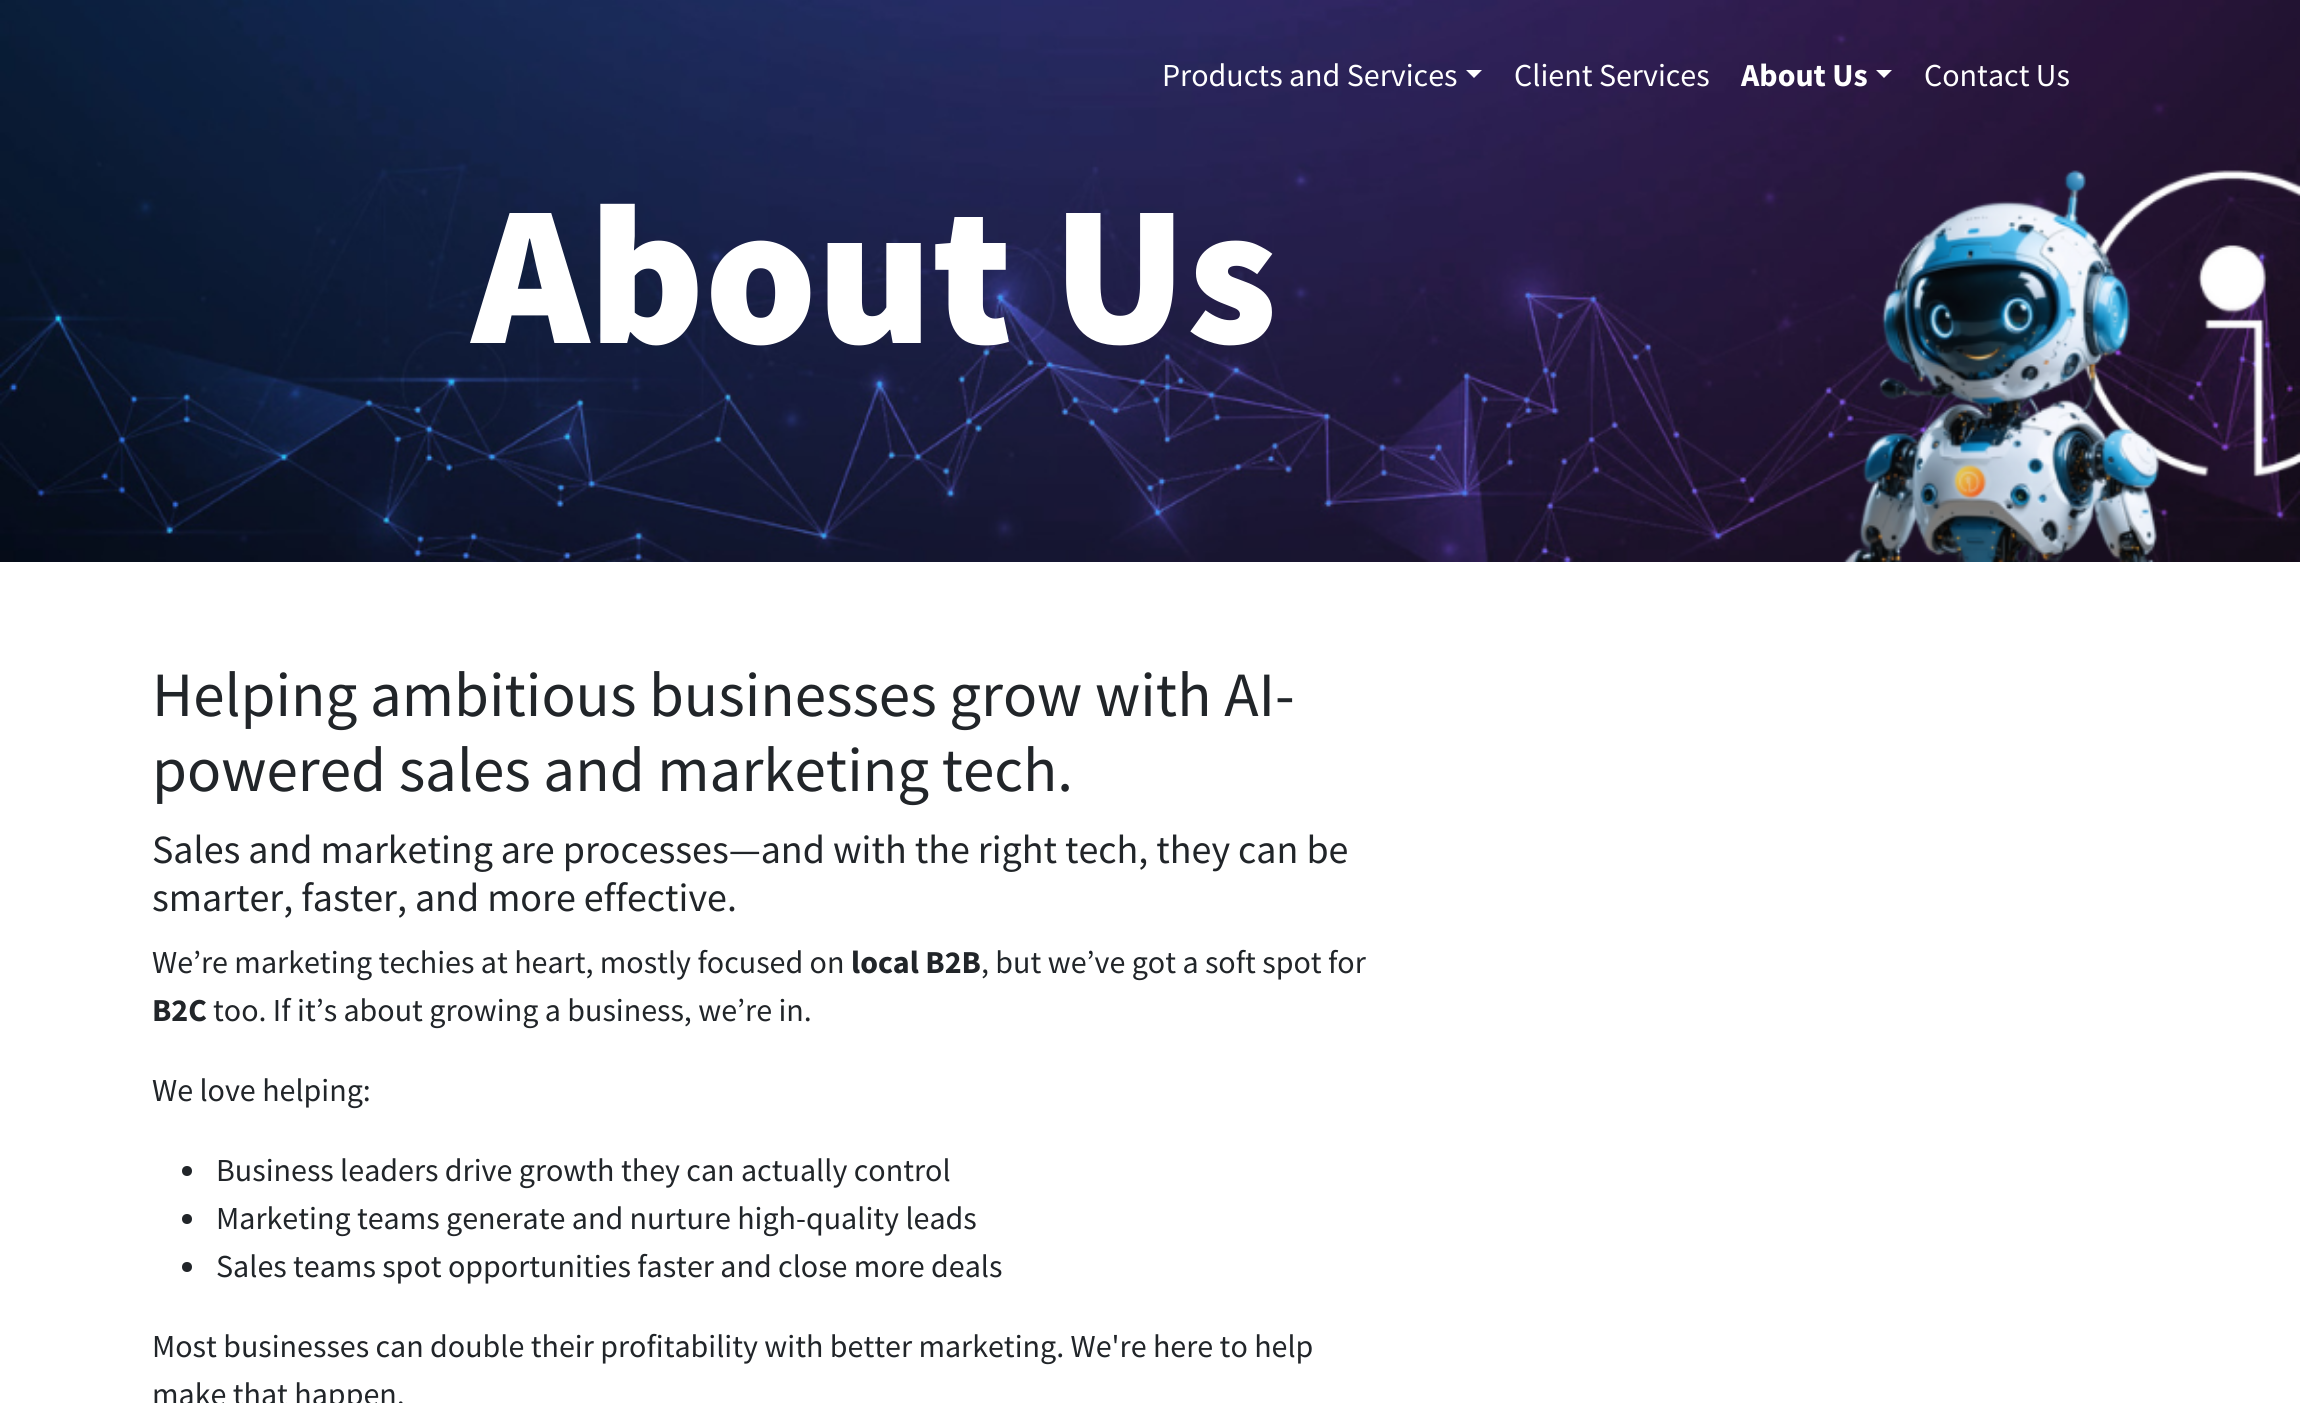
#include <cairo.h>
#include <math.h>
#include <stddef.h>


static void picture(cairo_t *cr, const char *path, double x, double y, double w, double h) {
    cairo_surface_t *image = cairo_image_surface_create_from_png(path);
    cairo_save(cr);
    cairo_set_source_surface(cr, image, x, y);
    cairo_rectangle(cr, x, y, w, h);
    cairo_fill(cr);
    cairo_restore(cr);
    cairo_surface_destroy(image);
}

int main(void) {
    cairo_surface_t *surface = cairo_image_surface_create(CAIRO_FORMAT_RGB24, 2300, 1403);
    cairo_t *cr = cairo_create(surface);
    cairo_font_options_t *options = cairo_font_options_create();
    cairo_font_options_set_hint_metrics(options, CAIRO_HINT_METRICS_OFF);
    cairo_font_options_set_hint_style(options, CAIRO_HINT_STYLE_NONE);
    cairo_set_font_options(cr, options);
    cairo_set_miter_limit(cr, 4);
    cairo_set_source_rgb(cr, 1, 1, 1);
    cairo_paint(cr);
    picture(cr, "img1.png", 0, 0, 2300, 562);
    cairo_select_font_face(cr, "Source Sans Pro", CAIRO_FONT_SLANT_NORMAL, CAIRO_FONT_WEIGHT_NORMAL);
    cairo_set_font_size(cr, 32);
    cairo_set_source_rgb(cr, 1, 1, 1);
    cairo_move_to(cr, 1162, 86);
    cairo_show_text(cr, "Products and Services");
    cairo_new_path(cr);
    cairo_move_to(cr, 1466, 70);
    cairo_line_to(cr, 1482, 70);
    cairo_line_to(cr, 1474, 78);
    cairo_close_path(cr);
    cairo_fill(cr);
    cairo_move_to(cr, 1514, 86);
    cairo_show_text(cr, "Client Services");
    cairo_select_font_face(cr, "Source Sans Pro", CAIRO_FONT_SLANT_NORMAL, CAIRO_FONT_WEIGHT_BOLD);
    cairo_move_to(cr, 1741, 86);
    cairo_show_text(cr, "About Us");
    cairo_new_path(cr);
    cairo_move_to(cr, 1876, 70);
    cairo_line_to(cr, 1892, 70);
    cairo_line_to(cr, 1884, 78);
    cairo_close_path(cr);
    cairo_fill(cr);
    cairo_select_font_face(cr, "Source Sans Pro", CAIRO_FONT_SLANT_NORMAL, CAIRO_FONT_WEIGHT_NORMAL);
    cairo_move_to(cr, 1924, 86);
    cairo_show_text(cr, "Contact Us");
    cairo_select_font_face(cr, "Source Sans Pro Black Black", CAIRO_FONT_SLANT_NORMAL, CAIRO_FONT_WEIGHT_NORMAL);
    cairo_set_font_size(cr, 200);
    cairo_move_to(cr, 472, 343);
    cairo_show_text(cr, "About Us");
    cairo_select_font_face(cr, "Source Sans Pro", CAIRO_FONT_SLANT_NORMAL, CAIRO_FONT_WEIGHT_NORMAL);
    cairo_set_font_size(cr, 63.1);
    cairo_set_source_rgb(cr, 0.129, 0.145, 0.161);
    cairo_move_to(cr, 152, 716);
    cairo_show_text(cr, "Helping ambitious businesses grow with AI-");
    cairo_move_to(cr, 152, 791);
    cairo_show_text(cr, "powered sales and marketing tech.");
    cairo_set_font_size(cr, 40);
    cairo_move_to(cr, 152, 863);
    cairo_show_text(cr, "Sales and marketing are processes—and with the right tech, they can be");
    cairo_move_to(cr, 152, 911);
    cairo_show_text(cr, "smarter, faster, and more effective.");
    cairo_set_font_size(cr, 32);
    cairo_move_to(cr, 152, 973);
    cairo_show_text(cr, "We’re marketing techies at heart, mostly focused on");
    cairo_select_font_face(cr, "Source Sans Pro", CAIRO_FONT_SLANT_NORMAL, CAIRO_FONT_WEIGHT_BOLD);
    cairo_move_to(cr, 851, 973);
    cairo_show_text(cr, "local B2B");
    cairo_select_font_face(cr, "Source Sans Pro", CAIRO_FONT_SLANT_NORMAL, CAIRO_FONT_WEIGHT_NORMAL);
    cairo_move_to(cr, 981, 973);
    cairo_show_text(cr, ", but we’ve got a soft spot for");
    cairo_select_font_face(cr, "Source Sans Pro", CAIRO_FONT_SLANT_NORMAL, CAIRO_FONT_WEIGHT_BOLD);
    cairo_move_to(cr, 152, 1021);
    cairo_show_text(cr, "B2C");
    cairo_select_font_face(cr, "Source Sans Pro", CAIRO_FONT_SLANT_NORMAL, CAIRO_FONT_WEIGHT_NORMAL);
    cairo_move_to(cr, 213, 1021);
    cairo_show_text(cr, "too. If it’s about growing a business, we’re in.");
    cairo_move_to(cr, 152, 1101);
    cairo_show_text(cr, "We love helping:");
    cairo_new_path(cr);
    cairo_arc(cr, 187, 1171, 5, 0, 2 * M_PI);
    cairo_fill(cr);
    cairo_move_to(cr, 216, 1181);
    cairo_show_text(cr, "Business leaders drive growth they can actually control");
    cairo_new_path(cr);
    cairo_arc(cr, 187, 1219, 5, 0, 2 * M_PI);
    cairo_fill(cr);
    cairo_move_to(cr, 216, 1229);
    cairo_show_text(cr, "Marketing teams generate and nurture high-quality leads");
    cairo_new_path(cr);
    cairo_arc(cr, 187, 1267, 5, 0, 2 * M_PI);
    cairo_fill(cr);
    cairo_move_to(cr, 216, 1277);
    cairo_show_text(cr, "Sales teams spot opportunities faster and close more deals");
    cairo_move_to(cr, 152, 1357);
    cairo_show_text(cr, "Most businesses can double their profitability with better marketing. We're here to help");
    cairo_move_to(cr, 152, 1405);
    cairo_show_text(cr, "make that happen.");
    cairo_surface_write_to_png(surface, "page.png");
    cairo_font_options_destroy(options);
    cairo_destroy(cr);
    cairo_surface_destroy(surface);
    return 0;
}
